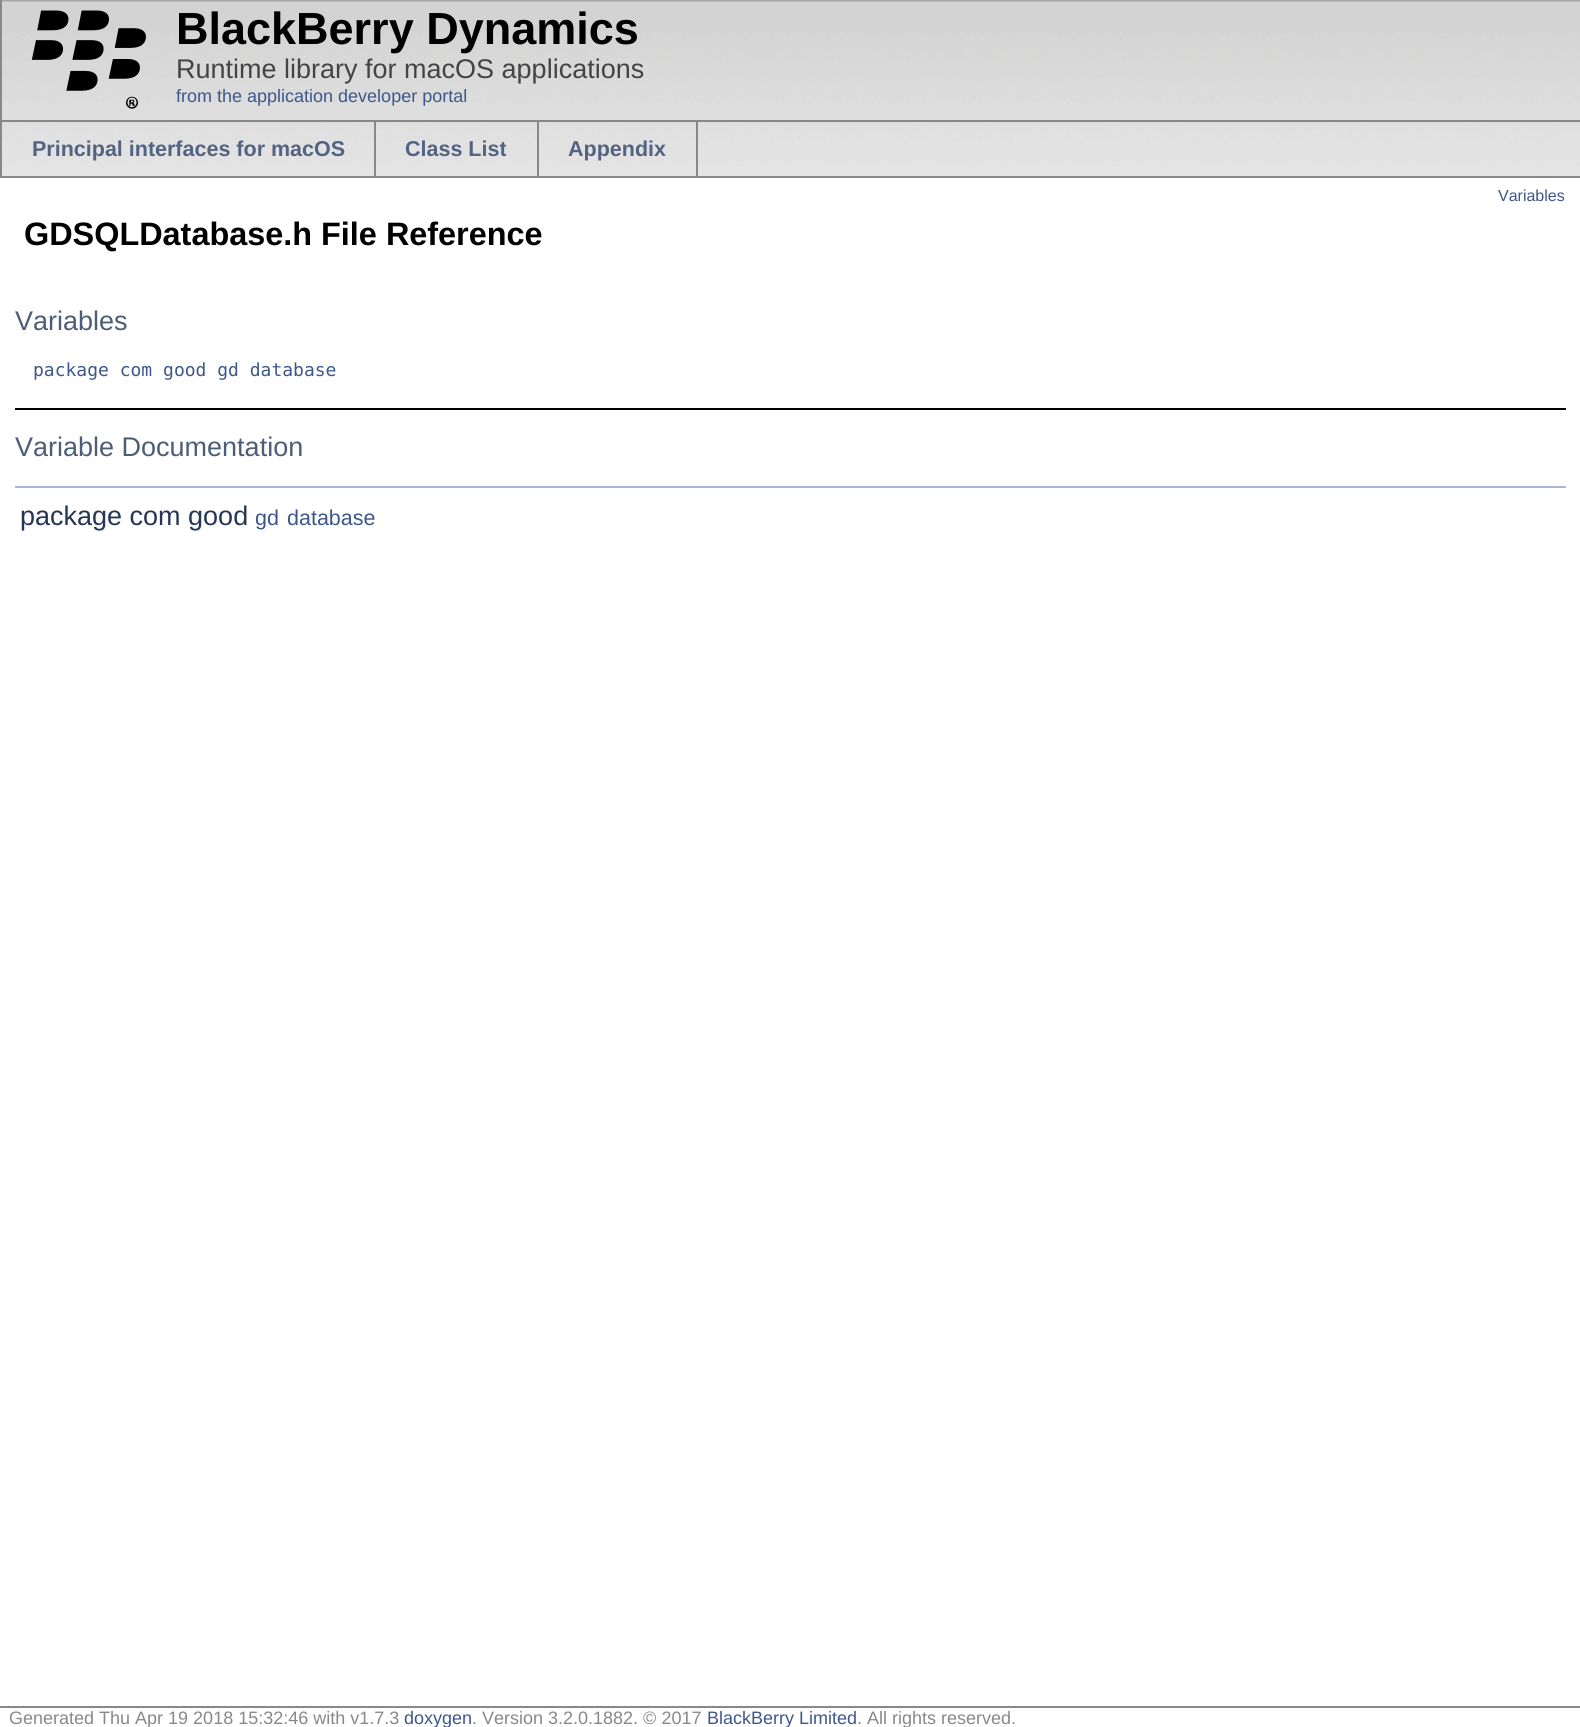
#include <cairo.h>
#include <math.h>
#include <stddef.h>


static void picture(cairo_t *cr, const char *path, double x, double y, double w, double h) {
    cairo_surface_t *image = cairo_image_surface_create_from_png(path);
    cairo_save(cr);
    cairo_set_source_surface(cr, image, x, y);
    cairo_rectangle(cr, x, y, w, h);
    cairo_fill(cr);
    cairo_restore(cr);
    cairo_surface_destroy(image);
}

int main(void) {
    cairo_surface_t *surface = cairo_image_surface_create(CAIRO_FORMAT_RGB24, 1580, 1727);
    cairo_t *cr = cairo_create(surface);
    cairo_font_options_t *options = cairo_font_options_create();
    cairo_font_options_set_hint_metrics(options, CAIRO_HINT_METRICS_OFF);
    cairo_font_options_set_hint_style(options, CAIRO_HINT_STYLE_NONE);
    cairo_set_font_options(cr, options);
    cairo_set_miter_limit(cr, 4);
    cairo_set_source_rgb(cr, 1, 1, 1);
    cairo_paint(cr);
    picture(cr, "img1.png", 2, 0, 1578, 176);
    cairo_set_source_rgb(cr, 0.533, 0.533, 0.533);
    cairo_rectangle(cr, 0, 120, 1580, 2);
    cairo_fill(cr);
    cairo_rectangle(cr, 0, 0, 2, 122);
    cairo_fill(cr);
    picture(cr, "img2.png", 31, 10, 115, 99);
    cairo_select_font_face(cr, "Liberation Sans", CAIRO_FONT_SLANT_NORMAL, CAIRO_FONT_WEIGHT_BOLD);
    cairo_set_font_size(cr, 45);
    cairo_set_source_rgb(cr, 0, 0, 0);
    cairo_move_to(cr, 176, 44);
    cairo_show_text(cr, "BlackBerry Dynamics");
    cairo_select_font_face(cr, "Liberation Sans", CAIRO_FONT_SLANT_NORMAL, CAIRO_FONT_WEIGHT_NORMAL);
    cairo_set_font_size(cr, 27);
    cairo_set_source_rgb(cr, 0.267, 0.267, 0.267);
    cairo_move_to(cr, 176, 78);
    cairo_show_text(cr, "Runtime library for macOS applications");
    cairo_set_font_size(cr, 18);
    cairo_set_source_rgb(cr, 0.239, 0.341, 0.549);
    cairo_move_to(cr, 176, 102);
    cairo_show_text(cr, "from the application developer portal");
    cairo_set_source_rgb(cr, 0.533, 0.533, 0.533);
    cairo_rectangle(cr, 0, 176, 1580, 2);
    cairo_fill(cr);
    cairo_rectangle(cr, 0, 122, 2, 55);
    cairo_fill(cr);
    cairo_rectangle(cr, 374, 122, 2, 54);
    cairo_fill(cr);
    cairo_select_font_face(cr, "Liberation Sans", CAIRO_FONT_SLANT_NORMAL, CAIRO_FONT_WEIGHT_BOLD);
    cairo_set_font_size(cr, 21.5);
    cairo_set_source_rgb(cr, 0.325, 0.392, 0.51);
    cairo_move_to(cr, 32, 156);
    cairo_show_text(cr, "Principal interfaces for macOS");
    cairo_set_source_rgb(cr, 0.533, 0.533, 0.533);
    cairo_rectangle(cr, 537, 122, 2, 54);
    cairo_fill(cr);
    cairo_set_source_rgb(cr, 0.325, 0.392, 0.51);
    cairo_move_to(cr, 405, 156);
    cairo_show_text(cr, "Class List");
    cairo_set_source_rgb(cr, 0.533, 0.533, 0.533);
    cairo_rectangle(cr, 696, 122, 2, 54);
    cairo_fill(cr);
    cairo_set_source_rgb(cr, 0.325, 0.392, 0.51);
    cairo_move_to(cr, 568, 156);
    cairo_show_text(cr, "Appendix");
    cairo_select_font_face(cr, "Liberation Sans", CAIRO_FONT_SLANT_NORMAL, CAIRO_FONT_WEIGHT_NORMAL);
    cairo_set_font_size(cr, 16);
    cairo_set_source_rgb(cr, 0.239, 0.341, 0.549);
    cairo_move_to(cr, 1498, 201);
    cairo_show_text(cr, "Variables");
    cairo_select_font_face(cr, "Liberation Sans", CAIRO_FONT_SLANT_NORMAL, CAIRO_FONT_WEIGHT_BOLD);
    cairo_set_font_size(cr, 32.4);
    cairo_set_source_rgb(cr, 0, 0, 0);
    cairo_move_to(cr, 24, 245);
    cairo_show_text(cr, "GDSQLDatabase.h File Reference");
    cairo_select_font_face(cr, "Liberation Sans", CAIRO_FONT_SLANT_NORMAL, CAIRO_FONT_WEIGHT_NORMAL);
    cairo_set_font_size(cr, 27);
    cairo_set_source_rgb(cr, 0.298, 0.365, 0.467);
    cairo_move_to(cr, 15, 330);
    cairo_show_text(cr, "Variables");
    cairo_select_font_face(cr, "DejaVu Sans Mono", CAIRO_FONT_SLANT_NORMAL, CAIRO_FONT_WEIGHT_NORMAL);
    cairo_set_font_size(cr, 18);
    cairo_set_source_rgb(cr, 0.239, 0.341, 0.549);
    cairo_move_to(cr, 33, 376);
    cairo_show_text(cr, "package com good gd database");
    cairo_set_source_rgb(cr, 0, 0, 0);
    cairo_rectangle(cr, 15, 408, 1551, 2);
    cairo_fill(cr);
    cairo_select_font_face(cr, "Liberation Sans", CAIRO_FONT_SLANT_NORMAL, CAIRO_FONT_WEIGHT_NORMAL);
    cairo_set_font_size(cr, 27);
    cairo_set_source_rgb(cr, 0.298, 0.365, 0.467);
    cairo_move_to(cr, 15, 456);
    cairo_show_text(cr, "Variable Documentation");
    cairo_set_source_rgb(cr, 0.659, 0.722, 0.851);
    cairo_rectangle(cr, 15, 486, 1551, 2);
    cairo_fill(cr);
    cairo_set_source_rgb(cr, 0.145, 0.208, 0.333);
    cairo_move_to(cr, 20, 525);
    cairo_show_text(cr, "package com good");
    cairo_set_font_size(cr, 21.5);
    cairo_set_source_rgb(cr, 0.239, 0.341, 0.549);
    cairo_move_to(cr, 255, 525);
    cairo_show_text(cr, "gd");
    cairo_move_to(cr, 287, 525);
    cairo_show_text(cr, "database");
    cairo_set_source_rgb(cr, 0.533, 0.533, 0.533);
    cairo_rectangle(cr, 0, 1706, 1580, 2);
    cairo_fill(cr);
    cairo_set_font_size(cr, 18);
    cairo_move_to(cr, 9, 1724);
    cairo_show_text(cr, "Generated Thu Apr 19 2018 15:32:46 with v1.7.3");
    cairo_set_source_rgb(cr, 0.239, 0.341, 0.549);
    cairo_move_to(cr, 404, 1724);
    cairo_show_text(cr, "doxygen");
    cairo_set_source_rgb(cr, 0.533, 0.533, 0.533);
    cairo_move_to(cr, 472, 1724);
    cairo_show_text(cr, ". Version 3.2.0.1882. © 2017");
    cairo_set_source_rgb(cr, 0.239, 0.341, 0.549);
    cairo_move_to(cr, 707, 1724);
    cairo_show_text(cr, "BlackBerry Limited");
    cairo_set_source_rgb(cr, 0.533, 0.533, 0.533);
    cairo_move_to(cr, 857, 1724);
    cairo_show_text(cr, ". All rights reserved.");
    cairo_surface_write_to_png(surface, "page.png");
    cairo_font_options_destroy(options);
    cairo_destroy(cr);
    cairo_surface_destroy(surface);
    return 0;
}
